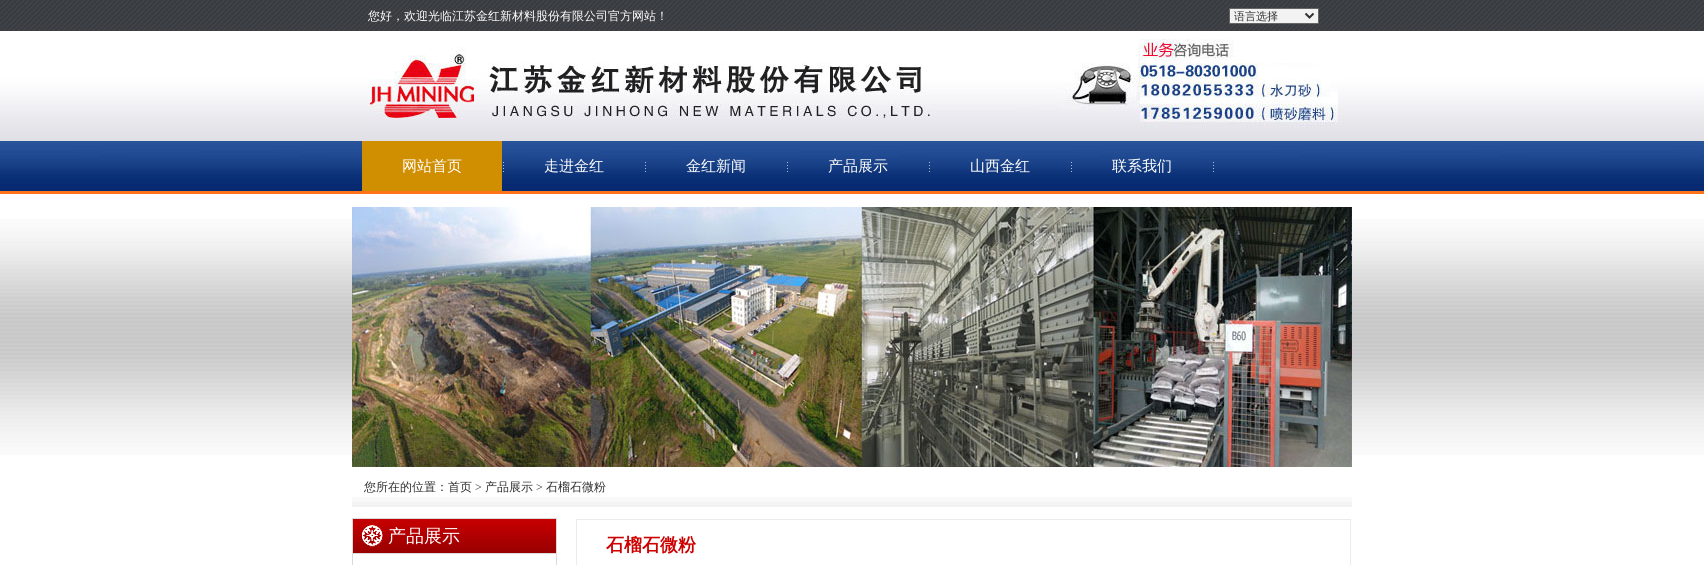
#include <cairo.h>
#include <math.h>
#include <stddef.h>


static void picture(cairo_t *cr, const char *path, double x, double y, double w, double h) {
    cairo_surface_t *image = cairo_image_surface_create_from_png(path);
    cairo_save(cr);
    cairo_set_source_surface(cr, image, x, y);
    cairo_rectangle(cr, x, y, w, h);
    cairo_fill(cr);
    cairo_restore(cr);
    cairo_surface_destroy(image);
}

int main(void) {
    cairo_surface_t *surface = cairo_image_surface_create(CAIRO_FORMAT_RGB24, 1704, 565);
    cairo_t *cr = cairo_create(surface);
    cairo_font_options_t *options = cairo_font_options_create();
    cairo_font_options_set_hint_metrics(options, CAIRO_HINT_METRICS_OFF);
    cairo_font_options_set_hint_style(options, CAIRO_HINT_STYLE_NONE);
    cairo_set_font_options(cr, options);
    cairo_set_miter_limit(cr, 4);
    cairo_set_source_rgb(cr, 1, 1, 1);
    cairo_paint(cr);
    picture(cr, "img1.png", 0, 0, 1704, 194);
    cairo_select_font_face(cr, "WenQuanYi Zen Hei Medium", CAIRO_FONT_SLANT_NORMAL, CAIRO_FONT_WEIGHT_NORMAL);
    cairo_set_font_size(cr, 12);
    cairo_set_source_rgb(cr, 1, 1, 1);
    cairo_move_to(cr, 368, 20);
    cairo_show_text(cr, "您好，欢迎光临江苏金红新材料股份有限公司官方网站！");
    cairo_set_source_rgb(cr, 0.949, 0.949, 0.949);
    cairo_rectangle(cr, 1229.5, 8.5, 89, 15);
    cairo_fill_preserve(cr);
    cairo_set_source_rgb(cr, 0.4, 0.4, 0.4);
    cairo_set_line_width(cr, 1);
    cairo_stroke(cr);
    cairo_new_path(cr);
    cairo_move_to(cr, 1305.5, 13.5);
    cairo_line_to(cr, 1309.5, 17.5);
    cairo_line_to(cr, 1313.5, 13.5);
    cairo_set_source_rgb(cr, 0.184, 0.184, 0.184);
    cairo_set_line_width(cr, 2);
    cairo_stroke(cr);
    cairo_set_font_size(cr, 11);
    cairo_move_to(cr, 1234, 20);
    cairo_show_text(cr, "语言选择");
    picture(cr, "img2.png", 370, 39, 968, 88);
    cairo_set_source_rgb(cr, 0.816, 0.557, 0.004);
    cairo_rectangle(cr, 362, 141, 140, 50);
    cairo_fill(cr);
    cairo_set_font_size(cr, 15);
    cairo_set_source_rgb(cr, 1, 1, 1);
    cairo_move_to(cr, 402, 171);
    cairo_show_text(cr, "网站首页");
    picture(cr, "img3.png", 503, 162, 1, 10);
    cairo_move_to(cr, 544, 171);
    cairo_show_text(cr, "走进金红");
    picture(cr, "img3.png", 645, 162, 1, 10);
    cairo_move_to(cr, 686, 171);
    cairo_show_text(cr, "金红新闻");
    picture(cr, "img3.png", 787, 162, 1, 10);
    cairo_move_to(cr, 828, 171);
    cairo_show_text(cr, "产品展示");
    picture(cr, "img3.png", 929, 162, 1, 10);
    cairo_move_to(cr, 970, 171);
    cairo_show_text(cr, "山西金红");
    picture(cr, "img3.png", 1071, 162, 1, 10);
    cairo_move_to(cr, 1112, 171);
    cairo_show_text(cr, "联系我们");
    picture(cr, "img3.png", 1213, 162, 1, 10);
    picture(cr, "img4.png", 0, 219, 1704, 236);
    picture(cr, "img5.png", 352, 207, 1000, 260);
    picture(cr, "img6.png", 352, 497, 1000, 10);
    cairo_set_font_size(cr, 12);
    cairo_set_source_rgb(cr, 0.184, 0.184, 0.184);
    cairo_move_to(cr, 364, 491);
    cairo_show_text(cr, "您所在的位置：首页");
    cairo_select_font_face(cr, "Liberation Serif", CAIRO_FONT_SLANT_NORMAL, CAIRO_FONT_WEIGHT_NORMAL);
    cairo_move_to(cr, 475, 491);
    cairo_show_text(cr, ">");
    cairo_select_font_face(cr, "WenQuanYi Zen Hei Medium", CAIRO_FONT_SLANT_NORMAL, CAIRO_FONT_WEIGHT_NORMAL);
    cairo_move_to(cr, 485, 491);
    cairo_show_text(cr, "产品展示");
    cairo_select_font_face(cr, "Liberation Serif", CAIRO_FONT_SLANT_NORMAL, CAIRO_FONT_WEIGHT_NORMAL);
    cairo_move_to(cr, 536, 491);
    cairo_show_text(cr, ">");
    cairo_select_font_face(cr, "WenQuanYi Zen Hei Medium", CAIRO_FONT_SLANT_NORMAL, CAIRO_FONT_WEIGHT_NORMAL);
    cairo_move_to(cr, 546, 491);
    cairo_show_text(cr, "石榴石微粉");
    cairo_set_source_rgb(cr, 0.859, 0.851, 0.855);
    cairo_rectangle(cr, 352, 518, 205, 47);
    cairo_fill(cr);
    picture(cr, "img7.png", 353, 519, 203, 34);
    cairo_set_font_size(cr, 18);
    cairo_set_source_rgb(cr, 1, 1, 1);
    cairo_move_to(cr, 388, 542);
    cairo_show_text(cr, "产品展示");
    cairo_rectangle(cr, 353, 554, 203, 11);
    cairo_fill(cr);
    cairo_rectangle(cr, 576.5, 519.5, 774, 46);
    cairo_set_source_rgb(cr, 0.918, 0.918, 0.918);
    cairo_set_line_width(cr, 1);
    cairo_stroke(cr);
    cairo_select_font_face(cr, "WenQuanYi Zen Hei", CAIRO_FONT_SLANT_NORMAL, CAIRO_FONT_WEIGHT_BOLD);
    cairo_set_source_rgb(cr, 0.8, 0, 0);
    cairo_move_to(cr, 606, 551);
    cairo_show_text(cr, "石榴石微粉");
    cairo_surface_write_to_png(surface, "page.png");
    cairo_font_options_destroy(options);
    cairo_destroy(cr);
    cairo_surface_destroy(surface);
    return 0;
}
